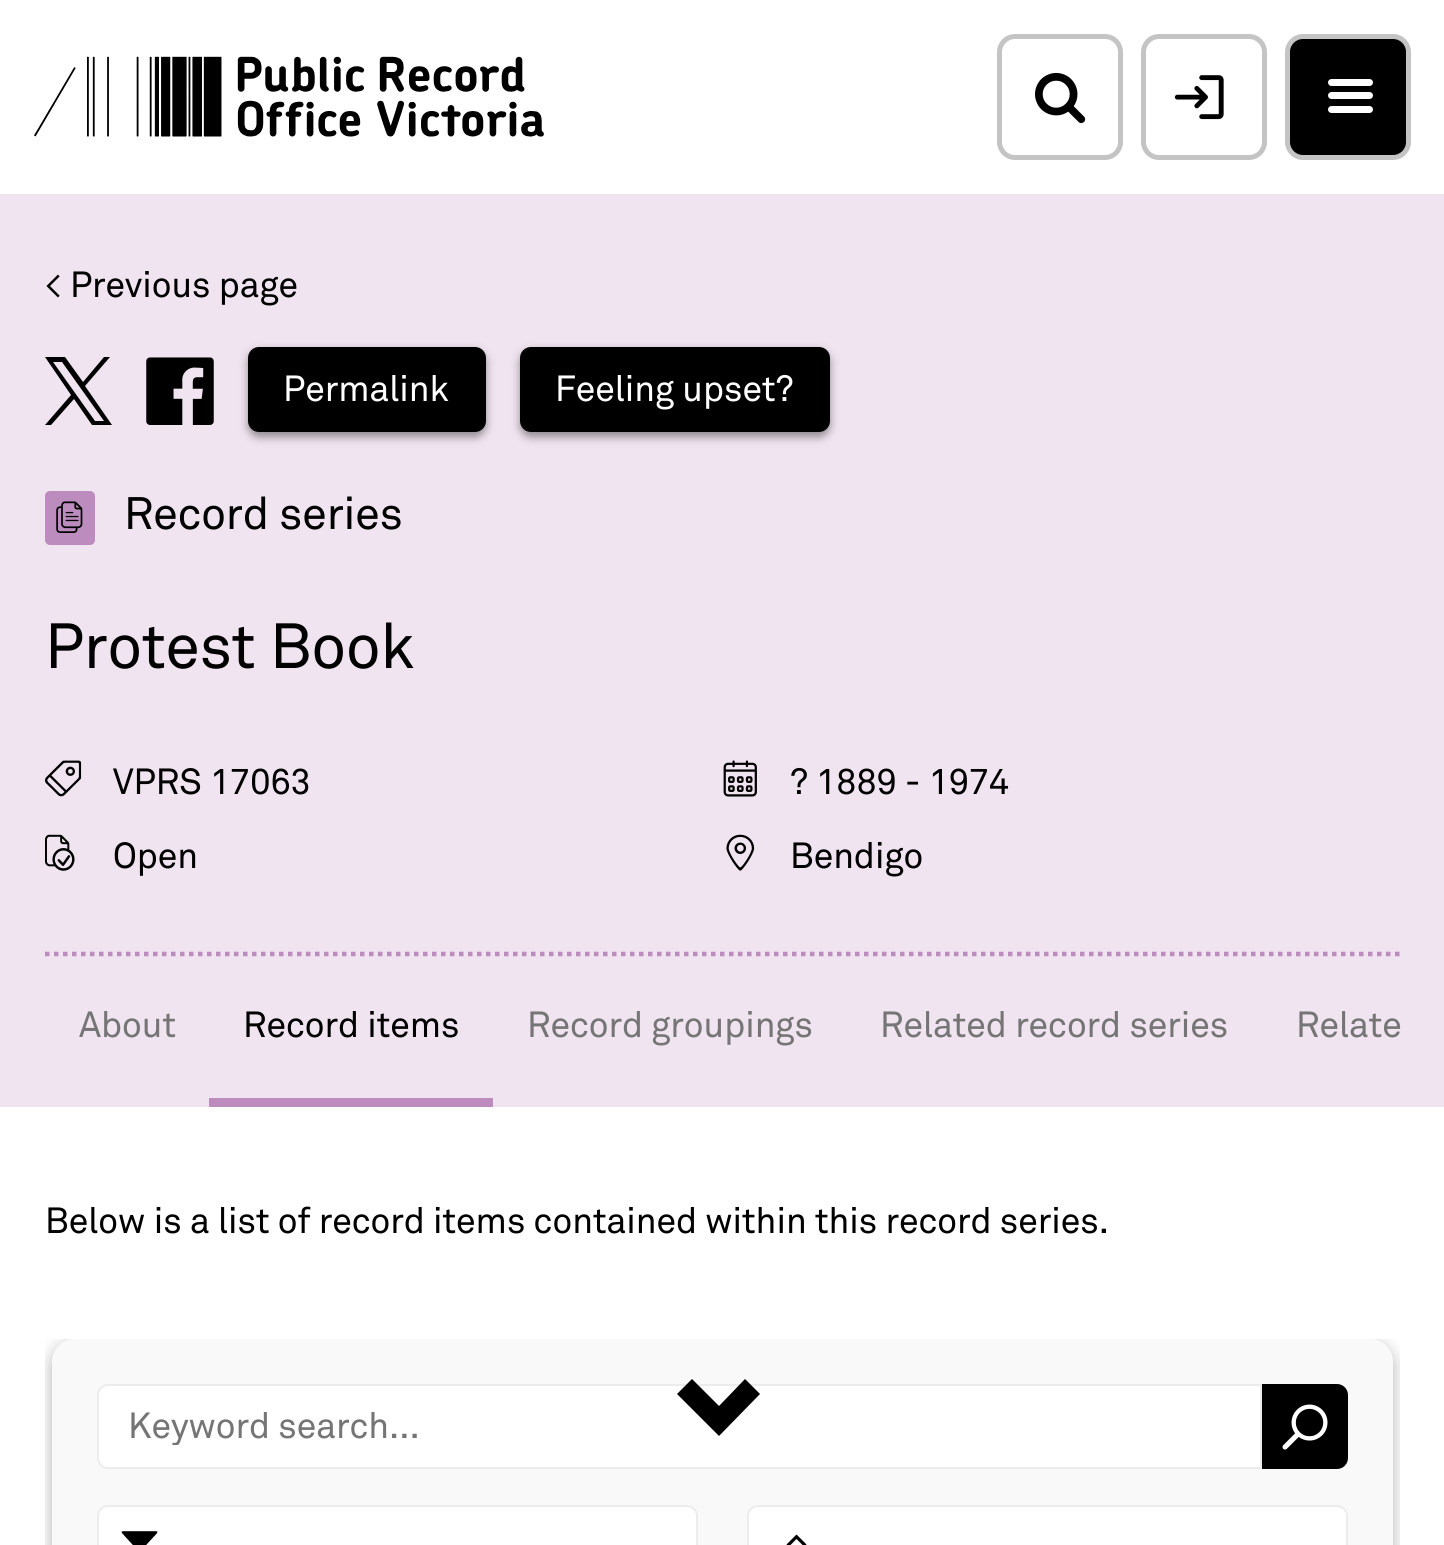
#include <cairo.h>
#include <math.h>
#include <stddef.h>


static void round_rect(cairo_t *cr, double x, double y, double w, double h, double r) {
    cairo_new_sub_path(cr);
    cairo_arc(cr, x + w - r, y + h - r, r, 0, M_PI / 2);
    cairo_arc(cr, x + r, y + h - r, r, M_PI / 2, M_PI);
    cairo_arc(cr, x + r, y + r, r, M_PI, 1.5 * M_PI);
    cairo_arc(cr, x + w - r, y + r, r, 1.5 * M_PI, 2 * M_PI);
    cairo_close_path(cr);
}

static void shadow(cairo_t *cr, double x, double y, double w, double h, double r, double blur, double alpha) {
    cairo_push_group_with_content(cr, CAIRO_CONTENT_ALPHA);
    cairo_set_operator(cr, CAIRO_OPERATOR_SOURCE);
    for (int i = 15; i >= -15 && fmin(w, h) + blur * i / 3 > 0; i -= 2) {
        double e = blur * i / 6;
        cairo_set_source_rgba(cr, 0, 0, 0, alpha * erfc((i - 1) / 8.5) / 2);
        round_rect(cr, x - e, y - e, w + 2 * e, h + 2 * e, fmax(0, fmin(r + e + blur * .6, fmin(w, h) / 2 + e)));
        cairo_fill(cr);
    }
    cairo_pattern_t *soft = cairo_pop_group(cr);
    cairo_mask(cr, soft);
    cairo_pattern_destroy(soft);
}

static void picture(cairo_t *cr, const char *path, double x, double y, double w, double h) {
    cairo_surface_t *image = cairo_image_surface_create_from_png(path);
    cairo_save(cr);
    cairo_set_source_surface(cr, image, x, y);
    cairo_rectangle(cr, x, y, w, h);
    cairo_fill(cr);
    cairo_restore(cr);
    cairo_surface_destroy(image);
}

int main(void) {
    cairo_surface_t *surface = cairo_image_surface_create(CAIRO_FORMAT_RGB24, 1444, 1545);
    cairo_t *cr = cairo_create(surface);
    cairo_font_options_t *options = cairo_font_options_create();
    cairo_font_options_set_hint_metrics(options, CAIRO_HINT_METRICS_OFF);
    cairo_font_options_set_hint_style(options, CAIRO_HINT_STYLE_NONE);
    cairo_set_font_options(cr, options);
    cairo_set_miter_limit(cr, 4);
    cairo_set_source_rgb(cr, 1, 1, 1);
    cairo_paint(cr);
    picture(cr, "img1.png", 34, 56, 510, 81);
    round_rect(cr, 999.5, 36.5, 121, 121, 15.5);
    cairo_set_source_rgb(cr, 0.769, 0.769, 0.769);
    cairo_set_line_width(cr, 5);
    cairo_stroke(cr);
    picture(cr, "img2.png", 1035, 72, 51, 52);
    round_rect(cr, 1143.5, 36.5, 121, 121, 15.5);
    cairo_stroke(cr);
    picture(cr, "img3.png", 1174, 75, 50, 45);
    cairo_set_source_rgb(cr, 0, 0, 0);
    round_rect(cr, 1287.5, 36.5, 121, 121, 15.5);
    cairo_fill_preserve(cr);
    cairo_set_source_rgb(cr, 0.769, 0.769, 0.769);
    cairo_stroke(cr);
    cairo_set_source_rgb(cr, 1, 1, 1);
    round_rect(cr, 1328, 79, 45, 7, 3.5);
    cairo_fill(cr);
    round_rect(cr, 1328, 92, 45, 7, 3.5);
    cairo_fill(cr);
    round_rect(cr, 1328, 106, 45, 7, 3.5);
    cairo_fill(cr);
    cairo_set_source_rgb(cr, 0.941, 0.894, 0.941);
    cairo_rectangle(cr, 0, 194, 1444, 913);
    cairo_fill(cr);
    cairo_select_font_face(cr, "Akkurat", CAIRO_FONT_SLANT_NORMAL, CAIRO_FONT_WEIGHT_NORMAL);
    cairo_set_font_size(cr, 36);
    cairo_set_source_rgb(cr, 0, 0, 0);
    cairo_move_to(cr, 45, 297);
    cairo_show_text(cr, "< Previous page");
    cairo_new_path(cr);
    cairo_move_to(cr, 85, 386);
    cairo_line_to(cr, 110, 357);
    cairo_line_to(cr, 104, 357);
    cairo_line_to(cr, 83, 382);
    cairo_line_to(cr, 65, 357);
    cairo_line_to(cr, 45, 357);
    cairo_line_to(cr, 71, 395);
    cairo_line_to(cr, 45, 425);
    cairo_line_to(cr, 51, 425);
    cairo_line_to(cr, 74, 399);
    cairo_line_to(cr, 92, 425);
    cairo_line_to(cr, 112, 425);
    cairo_close_path(cr);
    cairo_move_to(cr, 53, 362);
    cairo_line_to(cr, 62, 362);
    cairo_line_to(cr, 104, 421);
    cairo_line_to(cr, 95, 421);
    cairo_close_path(cr);
    cairo_fill(cr);
    picture(cr, "img4.png", 146, 357, 68, 68);
    cairo_set_source_rgb(cr, 0, 0, 0);
    shadow(cr, 248, 351, 238, 86, 11, 4.5, 0.4);
    cairo_set_source_rgb(cr, 0, 0, 0);
    round_rect(cr, 249, 348, 236, 83, 10);
    cairo_fill_preserve(cr);
    cairo_set_line_width(cr, 2);
    cairo_stroke(cr);
    cairo_set_source_rgb(cr, 1, 1, 1);
    cairo_move_to(cr, 283, 401);
    cairo_show_text(cr, "Permalink");
    cairo_set_source_rgb(cr, 0, 0, 0);
    shadow(cr, 520, 351, 310, 86, 11, 4.5, 0.4);
    cairo_set_source_rgb(cr, 0, 0, 0);
    round_rect(cr, 521, 348, 308, 83, 10);
    cairo_fill_preserve(cr);
    cairo_stroke(cr);
    cairo_set_source_rgb(cr, 1, 1, 1);
    cairo_move_to(cr, 555, 401);
    cairo_show_text(cr, "Feeling upset?");
    cairo_set_source_rgb(cr, 0.737, 0.549, 0.745);
    round_rect(cr, 45, 491, 50, 54, 5);
    cairo_fill(cr);
    picture(cr, "img5.png", 56, 501, 27, 32);
    cairo_set_font_size(cr, 45);
    cairo_set_source_rgb(cr, 0, 0, 0);
    cairo_move_to(cr, 124, 529);
    cairo_show_text(cr, "Record series");
    cairo_set_font_size(cr, 63);
    cairo_move_to(cr, 45, 668);
    cairo_show_text(cr, "Protest Book");
    cairo_new_path(cr);
    cairo_move_to(cr, 45, 954);
    cairo_line_to(cr, 1399.5, 954);
    cairo_set_source_rgb(cr, 0.737, 0.549, 0.745);
    cairo_set_line_width(cr, 4.5);
    cairo_set_dash(cr, (double[]){4.5, 4.5}, 2, 0);
    cairo_stroke(cr);
    picture(cr, "img6.png", 45, 760, 37, 37);
    cairo_set_font_size(cr, 36);
    cairo_set_source_rgb(cr, 0, 0, 0);
    cairo_move_to(cr, 113, 794);
    cairo_show_text(cr, "VPRS 17063");
    picture(cr, "img7.png", 723, 760, 34, 37);
    cairo_move_to(cr, 790, 794);
    cairo_show_text(cr, "? 1889 - 1974");
    picture(cr, "img8.png", 45, 834, 30, 37);
    cairo_move_to(cr, 113, 868);
    cairo_show_text(cr, "Open");
    picture(cr, "img9.png", 726, 834, 29, 37);
    cairo_move_to(cr, 790, 868);
    cairo_show_text(cr, "Bendigo");
    cairo_set_source_rgb(cr, 0.459, 0.459, 0.459);
    cairo_move_to(cr, 79, 1037);
    cairo_show_text(cr, "About");
    cairo_set_source_rgb(cr, 0.737, 0.549, 0.745);
    cairo_rectangle(cr, 209, 1098, 284, 9);
    cairo_fill(cr);
    cairo_set_source_rgb(cr, 0, 0, 0);
    cairo_move_to(cr, 243, 1037);
    cairo_show_text(cr, "Record items");
    cairo_set_source_rgb(cr, 0.459, 0.459, 0.459);
    cairo_move_to(cr, 527, 1037);
    cairo_show_text(cr, "Record groupings");
    cairo_move_to(cr, 880, 1037);
    cairo_show_text(cr, "Related record series");
    cairo_save(cr);
    cairo_rectangle(cr, 45, 956, 1355, 151);
    cairo_clip(cr);
    cairo_move_to(cr, 1296, 1037);
    cairo_show_text(cr, "Relate");
    cairo_restore(cr);
    cairo_set_font_size(cr, 36.05);
    cairo_set_source_rgb(cr, 0, 0, 0);
    cairo_move_to(cr, 45, 1233);
    cairo_show_text(cr, "Below is a list of record items contained within this record series.");
    cairo_save(cr);
    cairo_rectangle(cr, 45, 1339, 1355, 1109);
    cairo_clip(cr);
    cairo_set_source_rgb(cr, 0, 0, 0);
    shadow(cr, 52, 1343, 1341, 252, 23, 9, 0.3);
    cairo_restore(cr);
    cairo_set_source_rgb(cr, 0.976, 0.976, 0.976);
    round_rect(cr, 52, 1339, 1341, 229, 23);
    cairo_fill(cr);
    cairo_set_source_rgb(cr, 1, 1, 1);
    cairo_new_path(cr);
    cairo_move_to(cr, 108, 1385);
    cairo_line_to(cr, 1261, 1385);
    cairo_line_to(cr, 1261, 1468);
    cairo_line_to(cr, 108, 1468);
    cairo_curve_to(cr, 102.5, 1468, 98, 1463.5, 98, 1458);
    cairo_line_to(cr, 98, 1395);
    cairo_curve_to(cr, 98, 1389.5, 102.5, 1385, 108, 1385);
    cairo_close_path(cr);
    cairo_fill_preserve(cr);
    cairo_set_source_rgb(cr, 0.922, 0.922, 0.922);
    cairo_set_line_width(cr, 2);
    cairo_set_dash(cr, NULL, 0, 0);
    cairo_stroke(cr);
    cairo_save(cr);
    cairo_rectangle(cr, 128, 1409, 1103, 36);
    cairo_clip(cr);
    cairo_set_font_size(cr, 36);
    cairo_set_source_rgb(cr, 0.459, 0.459, 0.459);
    cairo_move_to(cr, 128, 1438);
    cairo_show_text(cr, "Keyword search...");
    cairo_restore(cr);
    cairo_set_source_rgb(cr, 0, 0, 0);
    cairo_new_path(cr);
    cairo_move_to(cr, 1263, 1385);
    cairo_line_to(cr, 1337, 1385);
    cairo_curve_to(cr, 1342.5, 1385, 1347, 1389.5, 1347, 1395);
    cairo_line_to(cr, 1347, 1458);
    cairo_curve_to(cr, 1347, 1463.5, 1342.5, 1468, 1337, 1468);
    cairo_line_to(cr, 1263, 1468);
    cairo_close_path(cr);
    cairo_fill_preserve(cr);
    cairo_stroke(cr);
    picture(cr, "img10.png", 1282, 1404, 46, 46);
    cairo_set_source_rgb(cr, 1, 1, 1);
    round_rect(cr, 98, 1506, 599, 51, 10);
    cairo_fill_preserve(cr);
    cairo_set_source_rgb(cr, 0.922, 0.922, 0.922);
    cairo_stroke(cr);
    picture(cr, "img11.png", 121, 1531, 37, 14);
    cairo_set_source_rgb(cr, 1, 1, 1);
    round_rect(cr, 748, 1506, 599, 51, 10);
    cairo_fill_preserve(cr);
    cairo_set_source_rgb(cr, 0.922, 0.922, 0.922);
    cairo_stroke(cr);
    cairo_set_source_rgb(cr, 0, 0, 0);
    cairo_new_path(cr);
    cairo_move_to(cr, 786.5, 1544.5);
    cairo_line_to(cr, 796.5, 1534.5);
    cairo_line_to(cr, 806.5, 1544.5);
    cairo_line_to(cr, 804.5, 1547);
    cairo_line_to(cr, 796.5, 1539);
    cairo_line_to(cr, 788.5, 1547);
    cairo_close_path(cr);
    cairo_fill(cr);
    cairo_new_path(cr);
    cairo_move_to(cr, 760, 1394);
    cairo_line_to(cr, 719, 1436);
    cairo_line_to(cr, 677, 1394);
    cairo_line_to(cr, 692, 1379);
    cairo_line_to(cr, 719, 1406);
    cairo_line_to(cr, 745, 1379);
    cairo_close_path(cr);
    cairo_fill(cr);
    cairo_surface_write_to_png(surface, "page.png");
    cairo_font_options_destroy(options);
    cairo_destroy(cr);
    cairo_surface_destroy(surface);
    return 0;
}
